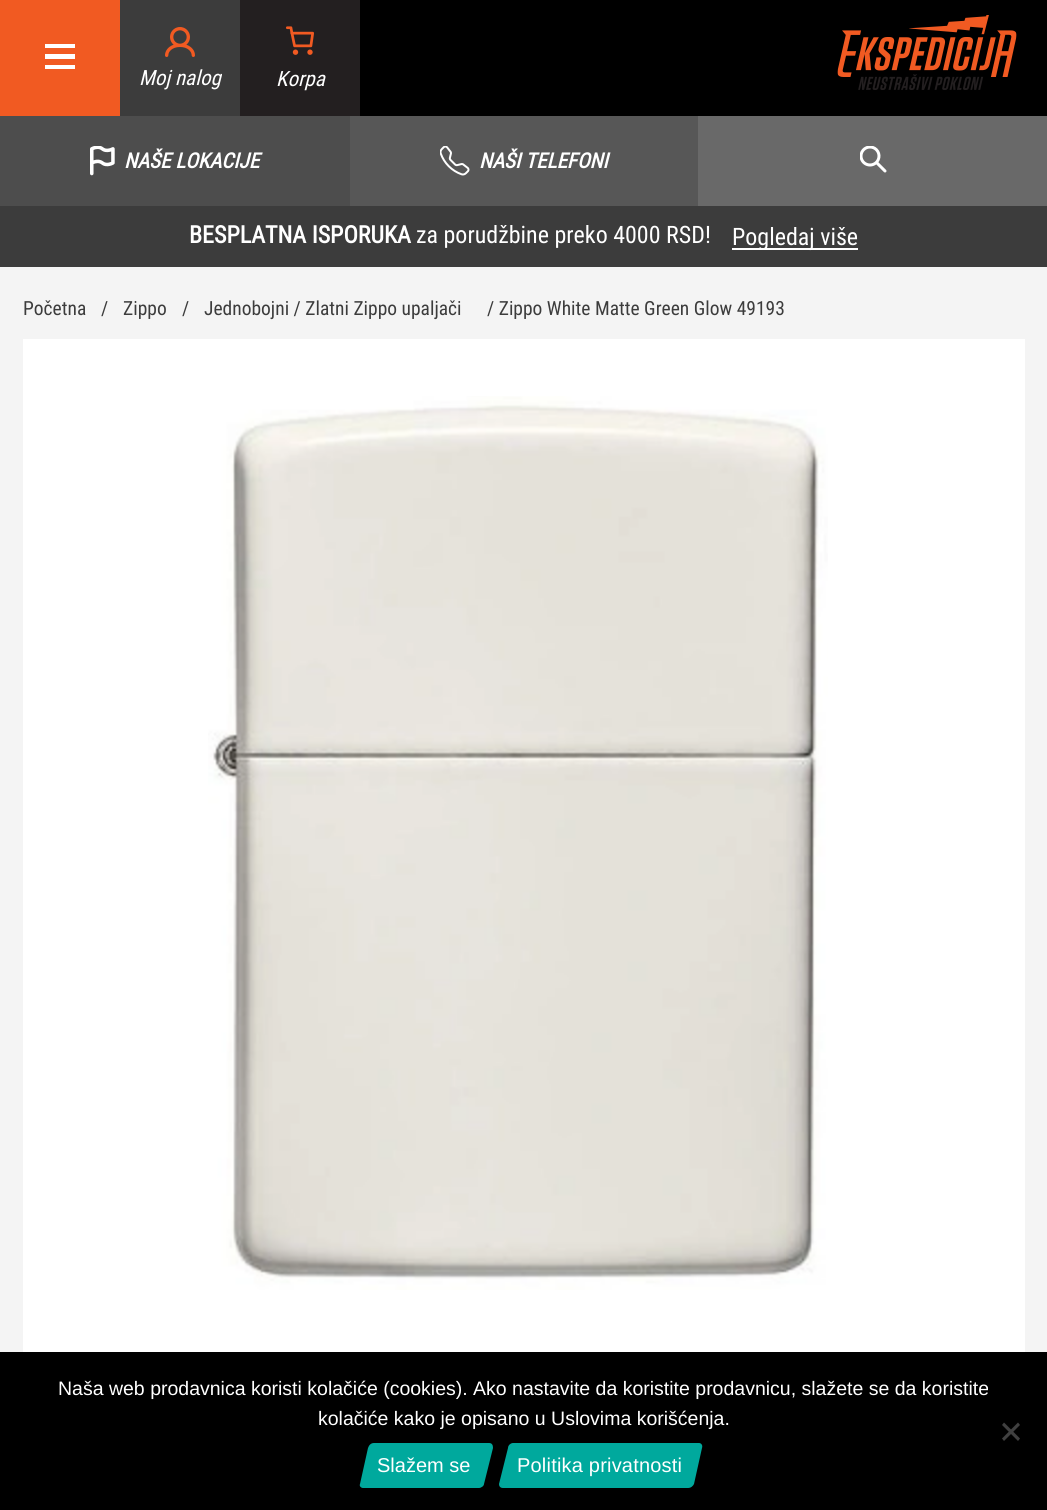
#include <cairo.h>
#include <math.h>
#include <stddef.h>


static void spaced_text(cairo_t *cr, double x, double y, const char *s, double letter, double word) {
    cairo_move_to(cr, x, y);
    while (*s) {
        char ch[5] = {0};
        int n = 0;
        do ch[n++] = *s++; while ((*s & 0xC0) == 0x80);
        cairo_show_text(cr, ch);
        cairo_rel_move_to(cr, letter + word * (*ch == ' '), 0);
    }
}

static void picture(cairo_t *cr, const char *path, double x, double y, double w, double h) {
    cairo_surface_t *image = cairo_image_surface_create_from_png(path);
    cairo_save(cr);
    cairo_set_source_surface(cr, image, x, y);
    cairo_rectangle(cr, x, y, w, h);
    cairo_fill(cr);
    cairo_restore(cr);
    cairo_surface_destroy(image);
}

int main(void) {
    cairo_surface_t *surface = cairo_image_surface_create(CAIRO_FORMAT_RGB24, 1047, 1510);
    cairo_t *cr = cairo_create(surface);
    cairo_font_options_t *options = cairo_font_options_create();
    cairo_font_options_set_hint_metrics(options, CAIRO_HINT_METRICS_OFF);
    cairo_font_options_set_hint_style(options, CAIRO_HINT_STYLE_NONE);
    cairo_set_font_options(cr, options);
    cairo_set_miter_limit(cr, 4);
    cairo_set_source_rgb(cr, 0.957, 0.957, 0.957);
    cairo_paint(cr);
    cairo_set_source_rgb(cr, 0.945, 0.353, 0.133);
    cairo_rectangle(cr, 0, 0, 120, 116);
    cairo_fill(cr);
    cairo_set_source_rgb(cr, 1, 1, 1);
    cairo_rectangle(cr, 45, 44, 30, 4);
    cairo_fill(cr);
    cairo_rectangle(cr, 45, 54, 30, 5);
    cairo_fill(cr);
    cairo_rectangle(cr, 45, 65, 30, 4);
    cairo_fill(cr);
    cairo_set_source_rgb(cr, 0.235, 0.235, 0.235);
    cairo_rectangle(cr, 120, 0, 120, 116);
    cairo_fill(cr);
    picture(cr, "img1.png", 165, 27, 30, 30);
    cairo_select_font_face(cr, "Roboto Condensed", CAIRO_FONT_SLANT_ITALIC, CAIRO_FONT_WEIGHT_NORMAL);
    cairo_set_font_size(cr, 21);
    cairo_set_source_rgb(cr, 1, 1, 1);
    cairo_move_to(cr, 139, 85);
    cairo_show_text(cr, "Moj nalog");
    cairo_set_source_rgb(cr, 0.137, 0.122, 0.125);
    cairo_rectangle(cr, 240, 0, 120, 116);
    cairo_fill(cr);
    picture(cr, "img2.png", 286, 26, 28, 29);
    cairo_set_source_rgb(cr, 1, 1, 1);
    cairo_move_to(cr, 276, 86);
    cairo_show_text(cr, "Korpa");
    cairo_set_source_rgb(cr, 0, 0, 0);
    cairo_rectangle(cr, 360, 0, 687, 116);
    cairo_fill(cr);
    picture(cr, "img3.png", 837, 15, 180, 75);
    cairo_set_source_rgb(cr, 0.302, 0.302, 0.302);
    cairo_rectangle(cr, 0, 116, 350, 90);
    cairo_fill(cr);
    picture(cr, "img4.png", 90, 146, 25, 30);
    cairo_select_font_face(cr, "Roboto Condensed", CAIRO_FONT_SLANT_ITALIC, CAIRO_FONT_WEIGHT_BOLD);
    cairo_set_source_rgb(cr, 1, 1, 1);
    cairo_move_to(cr, 124, 168);
    cairo_show_text(cr, "NAŠE LOKACIJE");
    cairo_set_source_rgb(cr, 0.341, 0.341, 0.341);
    cairo_rectangle(cr, 350, 116, 348, 90);
    cairo_fill(cr);
    picture(cr, "img5.png", 440, 146, 30, 30);
    cairo_set_source_rgb(cr, 1, 1, 1);
    cairo_move_to(cr, 479, 168);
    cairo_show_text(cr, "NAŠI TELEFONI");
    cairo_set_source_rgb(cr, 0.412, 0.412, 0.412);
    cairo_rectangle(cr, 698, 116, 349, 90);
    cairo_fill(cr);
    picture(cr, "img6.png", 860, 146, 27, 27);
    cairo_set_source_rgb(cr, 0.235, 0.235, 0.235);
    cairo_rectangle(cr, 0, 206, 1047, 61);
    cairo_fill(cr);
    cairo_select_font_face(cr, "Roboto Condensed", CAIRO_FONT_SLANT_NORMAL, CAIRO_FONT_WEIGHT_BOLD);
    cairo_set_font_size(cr, 24);
    cairo_set_source_rgb(cr, 1, 1, 1);
    cairo_move_to(cr, 189, 243);
    cairo_show_text(cr, "BESPLATNA ISPORUKA");
    cairo_select_font_face(cr, "Roboto Condensed", CAIRO_FONT_SLANT_NORMAL, CAIRO_FONT_WEIGHT_NORMAL);
    cairo_move_to(cr, 416, 243);
    cairo_show_text(cr, "za porudžbine preko 4000 RSD!");
    cairo_rectangle(cr, 732, 248, 126, 2);
    cairo_fill(cr);
    cairo_move_to(cr, 732, 245);
    cairo_show_text(cr, "Pogledaj više");
    cairo_set_font_size(cr, 19.5);
    cairo_set_source_rgb(cr, 0.235, 0.235, 0.235);
    cairo_move_to(cr, 23, 315);
    cairo_show_text(cr, "Početna");
    cairo_move_to(cr, 101, 315);
    cairo_show_text(cr, "/");
    cairo_move_to(cr, 123, 315);
    cairo_show_text(cr, "Zippo");
    cairo_move_to(cr, 182, 315);
    cairo_show_text(cr, "/");
    cairo_move_to(cr, 204, 315);
    cairo_show_text(cr, "Jednobojni / Zlatni Zippo upaljači");
    cairo_move_to(cr, 487, 315);
    cairo_show_text(cr, "/ Zippo White Matte Green Glow 49193");
    cairo_set_source_rgb(cr, 1, 1, 1);
    cairo_rectangle(cr, 23, 339, 1002, 1013);
    cairo_fill(cr);
    picture(cr, "img7.png", 208, 396, 620, 894);
    cairo_set_source_rgb(cr, 0, 0, 0);
    cairo_rectangle(cr, 0, 1352, 1047, 158);
    cairo_fill(cr);
    cairo_select_font_face(cr, "Liberation Sans", CAIRO_FONT_SLANT_NORMAL, CAIRO_FONT_WEIGHT_NORMAL);
    cairo_set_source_rgb(cr, 1, 1, 1);
    cairo_move_to(cr, 58, 1395);
    cairo_show_text(cr, "Naša web prodavnica koristi kolačiće (cookies). Ako nastavite da koristite prodavnicu, slažete se da koristite");
    cairo_move_to(cr, 318, 1425);
    cairo_show_text(cr, "kolačiće kako je opisano u Uslovima korišćenja.");
    cairo_set_source_rgb(cr, 0.251, 0.251, 0.251);
    cairo_new_path(cr);
    cairo_move_to(cr, 1018, 1422.5);
    cairo_line_to(cr, 1020, 1425);
    cairo_line_to(cr, 1004, 1441);
    cairo_line_to(cr, 1002, 1438.5);
    cairo_close_path(cr);
    cairo_fill(cr);
    cairo_new_path(cr);
    cairo_move_to(cr, 1002, 1425);
    cairo_line_to(cr, 1004, 1422.5);
    cairo_line_to(cr, 1020, 1438.5);
    cairo_line_to(cr, 1018, 1441);
    cairo_close_path(cr);
    cairo_fill(cr);
    cairo_set_source_rgb(cr, 0, 0.663, 0.616);
    cairo_new_path(cr);
    cairo_move_to(cr, 374, 1443);
    cairo_line_to(cr, 489, 1443);
    cairo_curve_to(cr, 492, 1443, 493, 1445, 493, 1448);
    cairo_line_to(cr, 484, 1484);
    cairo_curve_to(cr, 484, 1486, 481, 1488, 479, 1488);
    cairo_line_to(cr, 363, 1488);
    cairo_curve_to(cr, 361, 1488, 359, 1486, 360, 1484);
    cairo_line_to(cr, 368, 1448);
    cairo_curve_to(cr, 369, 1445, 371, 1443, 374, 1443);
    cairo_close_path(cr);
    cairo_fill(cr);
    cairo_set_font_size(cr, 20);
    cairo_set_source_rgb(cr, 1, 1, 1);
    cairo_move_to(cr, 377, 1472);
    cairo_show_text(cr, "Slažem se");
    cairo_set_source_rgb(cr, 0, 0.663, 0.616);
    cairo_new_path(cr);
    cairo_move_to(cr, 513, 1443);
    cairo_line_to(cr, 699, 1443);
    cairo_curve_to(cr, 701, 1443, 703, 1445, 702, 1448);
    cairo_line_to(cr, 694, 1484);
    cairo_curve_to(cr, 693, 1486, 691, 1488, 688, 1488);
    cairo_line_to(cr, 503, 1488);
    cairo_curve_to(cr, 500, 1488, 499, 1486, 499, 1484);
    cairo_line_to(cr, 508, 1448);
    cairo_curve_to(cr, 508, 1445, 511, 1443, 513, 1443);
    cairo_close_path(cr);
    cairo_fill(cr);
    cairo_set_source_rgb(cr, 1, 1, 1);
    spaced_text(cr, 517, 1472, "Politika privatnosti", 0.2, 0);
    cairo_surface_write_to_png(surface, "page.png");
    cairo_font_options_destroy(options);
    cairo_destroy(cr);
    cairo_surface_destroy(surface);
    return 0;
}
